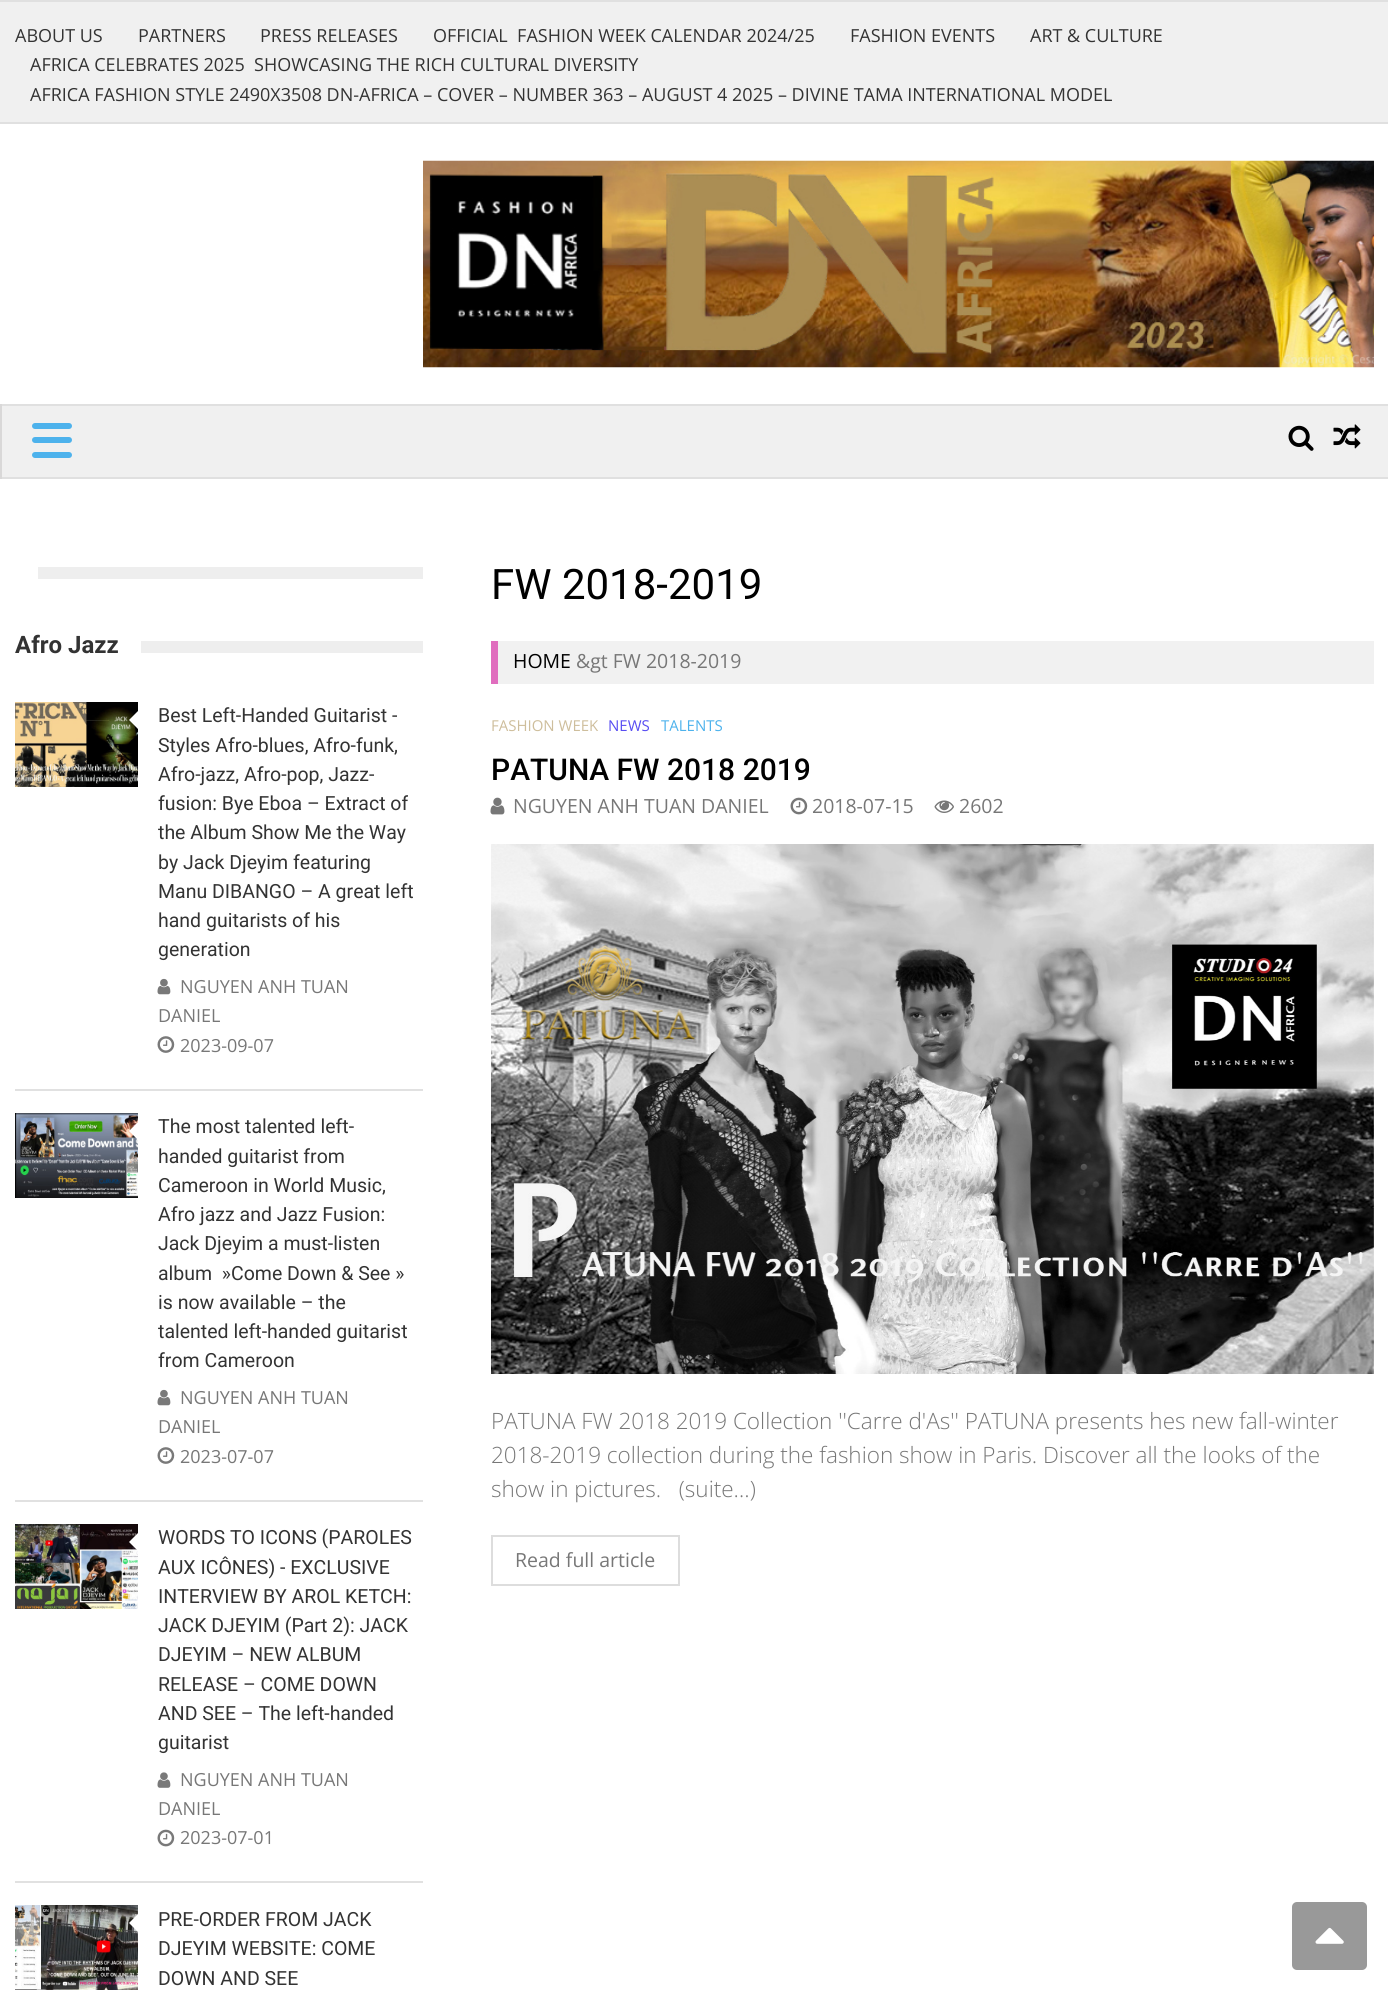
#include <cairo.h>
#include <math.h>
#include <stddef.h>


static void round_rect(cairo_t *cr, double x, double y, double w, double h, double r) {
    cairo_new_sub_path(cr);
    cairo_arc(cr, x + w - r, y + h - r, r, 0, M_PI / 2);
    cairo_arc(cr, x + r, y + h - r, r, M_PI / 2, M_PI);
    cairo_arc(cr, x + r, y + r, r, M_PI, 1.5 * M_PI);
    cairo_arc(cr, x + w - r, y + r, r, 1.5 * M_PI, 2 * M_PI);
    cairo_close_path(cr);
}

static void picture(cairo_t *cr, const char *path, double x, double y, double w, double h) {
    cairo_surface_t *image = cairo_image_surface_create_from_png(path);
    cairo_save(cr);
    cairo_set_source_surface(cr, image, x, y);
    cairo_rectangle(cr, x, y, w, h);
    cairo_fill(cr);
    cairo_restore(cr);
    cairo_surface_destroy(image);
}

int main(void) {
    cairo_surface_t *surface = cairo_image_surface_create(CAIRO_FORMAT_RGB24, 1388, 1992);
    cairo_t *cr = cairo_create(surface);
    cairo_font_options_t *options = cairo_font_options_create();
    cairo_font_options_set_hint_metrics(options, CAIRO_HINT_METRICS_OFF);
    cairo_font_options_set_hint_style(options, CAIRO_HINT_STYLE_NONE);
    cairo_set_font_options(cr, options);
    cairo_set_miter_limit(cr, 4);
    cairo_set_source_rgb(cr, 1, 1, 1);
    cairo_paint(cr);
    cairo_set_source_rgb(cr, 0.941, 0.941, 0.941);
    cairo_rectangle(cr, 0, 2, 1388, 120);
    cairo_fill(cr);
    cairo_set_source_rgb(cr, 0.878, 0.878, 0.878);
    cairo_rectangle(cr, 0, 0, 1388, 2);
    cairo_fill(cr);
    cairo_rectangle(cr, 0, 122, 1388, 2);
    cairo_fill(cr);
    cairo_select_font_face(cr, "Open Sans", CAIRO_FONT_SLANT_NORMAL, CAIRO_FONT_WEIGHT_NORMAL);
    cairo_set_font_size(cr, 18);
    cairo_set_source_rgb(cr, 0.2, 0.2, 0.2);
    cairo_move_to(cr, 15, 42);
    cairo_show_text(cr, "ABOUT US");
    cairo_move_to(cr, 138, 42);
    cairo_show_text(cr, "PARTNERS");
    cairo_move_to(cr, 260, 42);
    cairo_show_text(cr, "PRESS RELEASES");
    cairo_move_to(cr, 433, 42);
    cairo_show_text(cr, "OFFICIAL  FASHION WEEK CALENDAR 2024/25");
    cairo_move_to(cr, 850, 42);
    cairo_show_text(cr, "FASHION EVENTS");
    cairo_move_to(cr, 1030, 42);
    cairo_show_text(cr, "ART & CULTURE");
    cairo_move_to(cr, 30, 71);
    cairo_show_text(cr, "AFRICA CELEBRATES 2025  SHOWCASING THE RICH CULTURAL DIVERSITY");
    cairo_move_to(cr, 30, 101);
    cairo_show_text(cr, "AFRICA FASHION STYLE 2490X3508 DN-AFRICA – COVER – NUMBER 363 – AUGUST 4 2025 – DIVINE TAMA INTERNATIONAL MODEL");
    picture(cr, "img1.png", 423, 160, 951, 208);
    cairo_set_source_rgb(cr, 0.941, 0.941, 0.941);
    cairo_rectangle(cr, 2, 406, 1386, 71);
    cairo_fill(cr);
    cairo_set_source_rgb(cr, 0.878, 0.878, 0.878);
    cairo_rectangle(cr, 0, 404, 1388, 2);
    cairo_fill(cr);
    cairo_rectangle(cr, 0, 477, 1388, 2);
    cairo_fill(cr);
    cairo_set_source_rgb(cr, 0.851, 0.847, 0.847);
    cairo_rectangle(cr, 0, 404, 2, 75);
    cairo_fill(cr);
    cairo_set_source_rgb(cr, 0.302, 0.698, 0.925);
    round_rect(cr, 32, 423, 40, 6, 3);
    cairo_fill(cr);
    round_rect(cr, 32, 437, 40, 6, 3);
    cairo_fill(cr);
    round_rect(cr, 32, 452, 40, 6, 3);
    cairo_fill(cr);
    picture(cr, "img2.png", 1288, 425, 26, 26);
    picture(cr, "img3.png", 1333, 424, 28, 25);
    cairo_set_source_rgb(cr, 0.933, 0.933, 0.933);
    cairo_rectangle(cr, 38, 567, 385, 12);
    cairo_fill(cr);
    cairo_select_font_face(cr, "Roboto", CAIRO_FONT_SLANT_NORMAL, CAIRO_FONT_WEIGHT_BOLD);
    cairo_set_font_size(cr, 24);
    cairo_set_source_rgb(cr, 0.2, 0.2, 0.2);
    cairo_move_to(cr, 15, 653);
    cairo_show_text(cr, "Afro Jazz");
    cairo_set_source_rgb(cr, 0.933, 0.933, 0.933);
    cairo_rectangle(cr, 141, 641, 282, 12);
    cairo_fill(cr);
    cairo_set_source_rgb(cr, 0.882, 0.882, 0.882);
    cairo_rectangle(cr, 15, 1089, 408, 2);
    cairo_fill(cr);
    picture(cr, "img4.png", 15, 702, 123, 85);
    cairo_set_source_rgb(cr, 1, 1, 1);
    cairo_new_path(cr);
    cairo_move_to(cr, 138, 711);
    cairo_line_to(cr, 138, 729);
    cairo_line_to(cr, 129, 720);
    cairo_close_path(cr);
    cairo_fill(cr);
    cairo_select_font_face(cr, "Roboto", CAIRO_FONT_SLANT_NORMAL, CAIRO_FONT_WEIGHT_NORMAL);
    cairo_set_font_size(cr, 19.5);
    cairo_set_source_rgb(cr, 0.2, 0.2, 0.2);
    cairo_move_to(cr, 158, 722);
    cairo_show_text(cr, "Best Left-Handed Guitarist -");
    cairo_move_to(cr, 158, 752);
    cairo_show_text(cr, "Styles Afro-blues, Afro-funk,");
    cairo_move_to(cr, 158, 781);
    cairo_show_text(cr, "Afro-jazz, Afro-pop, Jazz-");
    cairo_move_to(cr, 158, 810);
    cairo_show_text(cr, "fusion: Bye Eboa – Extract of");
    cairo_move_to(cr, 158, 839);
    cairo_show_text(cr, "the Album Show Me the Way");
    cairo_move_to(cr, 158, 869);
    cairo_show_text(cr, "by Jack Djeyim featuring");
    cairo_move_to(cr, 158, 898);
    cairo_show_text(cr, "Manu DIBANGO – A great left");
    cairo_move_to(cr, 158, 927);
    cairo_show_text(cr, "hand guitarists of his");
    cairo_move_to(cr, 158, 956);
    cairo_show_text(cr, "generation");
    picture(cr, "img5.png", 157, 978, 14, 17);
    cairo_select_font_face(cr, "Open Sans", CAIRO_FONT_SLANT_NORMAL, CAIRO_FONT_WEIGHT_NORMAL);
    cairo_set_font_size(cr, 18);
    cairo_set_source_rgb(cr, 0.467, 0.467, 0.467);
    cairo_move_to(cr, 180, 993);
    cairo_show_text(cr, "NGUYEN ANH TUAN");
    cairo_move_to(cr, 158, 1022);
    cairo_show_text(cr, "DANIEL");
    picture(cr, "img6.png", 157, 1036, 18, 17);
    cairo_move_to(cr, 180, 1052);
    cairo_show_text(cr, "2023-09-07");
    cairo_set_source_rgb(cr, 0.882, 0.882, 0.882);
    cairo_rectangle(cr, 15, 1500, 408, 2);
    cairo_fill(cr);
    picture(cr, "img7.png", 15, 1113, 123, 85);
    cairo_set_source_rgb(cr, 1, 1, 1);
    cairo_new_path(cr);
    cairo_move_to(cr, 138, 1122);
    cairo_line_to(cr, 138, 1140);
    cairo_line_to(cr, 129, 1131);
    cairo_close_path(cr);
    cairo_fill(cr);
    cairo_select_font_face(cr, "Roboto", CAIRO_FONT_SLANT_NORMAL, CAIRO_FONT_WEIGHT_NORMAL);
    cairo_set_font_size(cr, 19.5);
    cairo_set_source_rgb(cr, 0.2, 0.2, 0.2);
    cairo_move_to(cr, 158, 1133);
    cairo_show_text(cr, "The most talented left-");
    cairo_move_to(cr, 158, 1163);
    cairo_show_text(cr, "handed guitarist from");
    cairo_move_to(cr, 158, 1192);
    cairo_show_text(cr, "Cameroon in World Music,");
    cairo_move_to(cr, 158, 1221);
    cairo_show_text(cr, "Afro jazz and Jazz Fusion:");
    cairo_move_to(cr, 158, 1250);
    cairo_show_text(cr, "Jack Djeyim a must-listen");
    cairo_move_to(cr, 158, 1280);
    cairo_show_text(cr, "album  »Come Down & See »");
    cairo_move_to(cr, 158, 1309);
    cairo_show_text(cr, "is now available – the");
    cairo_move_to(cr, 158, 1338);
    cairo_show_text(cr, "talented left-handed guitarist");
    cairo_move_to(cr, 158, 1367);
    cairo_show_text(cr, "from Cameroon");
    picture(cr, "img5.png", 157, 1389, 14, 17);
    cairo_select_font_face(cr, "Open Sans", CAIRO_FONT_SLANT_NORMAL, CAIRO_FONT_WEIGHT_NORMAL);
    cairo_set_font_size(cr, 18);
    cairo_set_source_rgb(cr, 0.467, 0.467, 0.467);
    cairo_move_to(cr, 180, 1404);
    cairo_show_text(cr, "NGUYEN ANH TUAN");
    cairo_move_to(cr, 158, 1433);
    cairo_show_text(cr, "DANIEL");
    picture(cr, "img6.png", 157, 1447, 18, 17);
    cairo_move_to(cr, 180, 1463);
    cairo_show_text(cr, "2023-07-07");
    cairo_set_source_rgb(cr, 0.882, 0.882, 0.882);
    cairo_rectangle(cr, 15, 1881, 408, 2);
    cairo_fill(cr);
    picture(cr, "img8.png", 15, 1524, 123, 85);
    cairo_set_source_rgb(cr, 1, 1, 1);
    cairo_new_path(cr);
    cairo_move_to(cr, 138, 1533);
    cairo_line_to(cr, 138, 1551);
    cairo_line_to(cr, 129, 1542);
    cairo_close_path(cr);
    cairo_fill(cr);
    cairo_select_font_face(cr, "Roboto", CAIRO_FONT_SLANT_NORMAL, CAIRO_FONT_WEIGHT_NORMAL);
    cairo_set_font_size(cr, 19.5);
    cairo_set_source_rgb(cr, 0.2, 0.2, 0.2);
    cairo_move_to(cr, 158, 1544);
    cairo_show_text(cr, "WORDS TO ICONS (PAROLES");
    cairo_move_to(cr, 158, 1574);
    cairo_show_text(cr, "AUX ICÔNES) - EXCLUSIVE");
    cairo_move_to(cr, 158, 1603);
    cairo_show_text(cr, "INTERVIEW BY AROL KETCH:");
    cairo_move_to(cr, 158, 1632);
    cairo_show_text(cr, "JACK DJEYIM (Part 2): JACK");
    cairo_move_to(cr, 158, 1661);
    cairo_show_text(cr, "DJEYIM – NEW ALBUM");
    cairo_move_to(cr, 158, 1691);
    cairo_show_text(cr, "RELEASE – COME DOWN");
    cairo_move_to(cr, 158, 1720);
    cairo_show_text(cr, "AND SEE – The left-handed");
    cairo_move_to(cr, 158, 1749);
    cairo_show_text(cr, "guitarist");
    picture(cr, "img9.png", 157, 1772, 14, 16);
    cairo_select_font_face(cr, "Open Sans", CAIRO_FONT_SLANT_NORMAL, CAIRO_FONT_WEIGHT_NORMAL);
    cairo_set_font_size(cr, 18);
    cairo_set_source_rgb(cr, 0.467, 0.467, 0.467);
    cairo_move_to(cr, 180, 1786);
    cairo_show_text(cr, "NGUYEN ANH TUAN");
    cairo_move_to(cr, 158, 1815);
    cairo_show_text(cr, "DANIEL");
    picture(cr, "img10.png", 157, 1829, 18, 18);
    cairo_move_to(cr, 180, 1844);
    cairo_show_text(cr, "2023-07-01");
    picture(cr, "img11.png", 15, 1905, 123, 85);
    cairo_set_source_rgb(cr, 1, 1, 1);
    cairo_new_path(cr);
    cairo_move_to(cr, 138, 1914);
    cairo_line_to(cr, 138, 1932);
    cairo_line_to(cr, 129, 1923);
    cairo_close_path(cr);
    cairo_fill(cr);
    cairo_select_font_face(cr, "Roboto", CAIRO_FONT_SLANT_NORMAL, CAIRO_FONT_WEIGHT_NORMAL);
    cairo_set_font_size(cr, 19.5);
    cairo_set_source_rgb(cr, 0.2, 0.2, 0.2);
    cairo_move_to(cr, 158, 1926);
    cairo_show_text(cr, "PRE-ORDER FROM JACK");
    cairo_move_to(cr, 158, 1955);
    cairo_show_text(cr, "DJEYIM WEBSITE: COME");
    cairo_move_to(cr, 158, 1985);
    cairo_show_text(cr, "DOWN AND SEE");
    cairo_set_font_size(cr, 42);
    cairo_set_source_rgb(cr, 0, 0, 0);
    cairo_move_to(cr, 491, 599);
    cairo_show_text(cr, "FW 2018-2019");
    cairo_set_source_rgb(cr, 0.945, 0.945, 0.945);
    cairo_rectangle(cr, 498, 641, 876, 43);
    cairo_fill(cr);
    cairo_set_source_rgb(cr, 0.878, 0.427, 0.745);
    cairo_rectangle(cr, 491, 641, 7, 43);
    cairo_fill(cr);
    cairo_select_font_face(cr, "Open Sans", CAIRO_FONT_SLANT_NORMAL, CAIRO_FONT_WEIGHT_NORMAL);
    cairo_set_font_size(cr, 19.5);
    cairo_set_source_rgb(cr, 0, 0, 0);
    cairo_move_to(cr, 513, 668);
    cairo_show_text(cr, "HOME");
    cairo_set_source_rgb(cr, 0.467, 0.467, 0.467);
    cairo_move_to(cr, 576, 668);
    cairo_show_text(cr, "&gt FW 2018-2019");
    cairo_set_font_size(cr, 15);
    cairo_set_source_rgb(cr, 0.808, 0.745, 0.612);
    cairo_move_to(cr, 491, 731);
    cairo_show_text(cr, "FASHION WEEK");
    cairo_set_source_rgb(cr, 0.345, 0.302, 0.949);
    cairo_move_to(cr, 608, 731);
    cairo_show_text(cr, "NEWS");
    cairo_set_source_rgb(cr, 0.302, 0.698, 0.925);
    cairo_move_to(cr, 661, 731);
    cairo_show_text(cr, "TALENTS");
    cairo_select_font_face(cr, "Roboto Medium", CAIRO_FONT_SLANT_NORMAL, CAIRO_FONT_WEIGHT_NORMAL);
    cairo_set_font_size(cr, 30);
    cairo_set_source_rgb(cr, 0, 0, 0);
    cairo_move_to(cr, 491, 780);
    cairo_show_text(cr, "PATUNA FW 2018 2019");
    picture(cr, "img12.png", 490, 797, 15, 18);
    cairo_select_font_face(cr, "Open Sans", CAIRO_FONT_SLANT_NORMAL, CAIRO_FONT_WEIGHT_NORMAL);
    cairo_set_font_size(cr, 19.5);
    cairo_set_source_rgb(cr, 0.467, 0.467, 0.467);
    cairo_move_to(cr, 513, 813);
    cairo_show_text(cr, "NGUYEN ANH TUAN DANIEL");
    picture(cr, "img13.png", 790, 797, 18, 18);
    cairo_move_to(cr, 812, 813);
    cairo_show_text(cr, "2018-07-15");
    picture(cr, "img14.png", 934, 800, 20, 13);
    cairo_move_to(cr, 959, 813);
    cairo_show_text(cr, "2602");
    picture(cr, "img15.png", 491, 844, 883, 530);
    cairo_select_font_face(cr, "Open Sans Light", CAIRO_FONT_SLANT_NORMAL, CAIRO_FONT_WEIGHT_NORMAL);
    cairo_set_font_size(cr, 22.5);
    cairo_move_to(cr, 491, 1429);
    cairo_show_text(cr, "PATUNA FW 2018 2019 Collection ''Carre d'As'' PATUNA presents hes new fall-winter");
    cairo_move_to(cr, 491, 1463);
    cairo_show_text(cr, "2018-2019 collection during the fashion show in Paris. Discover all the looks of the");
    cairo_move_to(cr, 491, 1497);
    cairo_show_text(cr, "show in pictures.   (suite…)");
    cairo_rectangle(cr, 492, 1536, 187, 49);
    cairo_set_source_rgb(cr, 0.867, 0.867, 0.867);
    cairo_stroke(cr);
    cairo_select_font_face(cr, "Open Sans", CAIRO_FONT_SLANT_NORMAL, CAIRO_FONT_WEIGHT_NORMAL);
    cairo_set_font_size(cr, 19.5);
    cairo_set_source_rgb(cr, 0.467, 0.467, 0.467);
    cairo_move_to(cr, 515, 1567);
    cairo_show_text(cr, "Read full article");
    cairo_set_source_rgb(cr, 0.6, 0.6, 0.6);
    round_rect(cr, 1292, 1902, 75, 68, 5);
    cairo_fill(cr);
    picture(cr, "img16.png", 1315, 1927, 29, 17);
    cairo_surface_write_to_png(surface, "page.png");
    cairo_font_options_destroy(options);
    cairo_destroy(cr);
    cairo_surface_destroy(surface);
    return 0;
}
